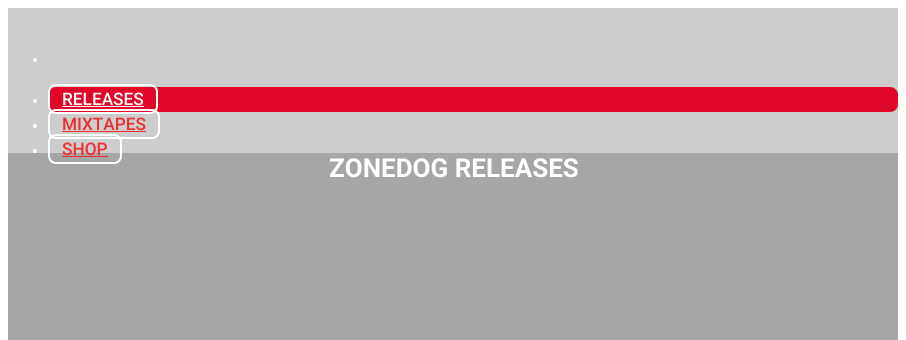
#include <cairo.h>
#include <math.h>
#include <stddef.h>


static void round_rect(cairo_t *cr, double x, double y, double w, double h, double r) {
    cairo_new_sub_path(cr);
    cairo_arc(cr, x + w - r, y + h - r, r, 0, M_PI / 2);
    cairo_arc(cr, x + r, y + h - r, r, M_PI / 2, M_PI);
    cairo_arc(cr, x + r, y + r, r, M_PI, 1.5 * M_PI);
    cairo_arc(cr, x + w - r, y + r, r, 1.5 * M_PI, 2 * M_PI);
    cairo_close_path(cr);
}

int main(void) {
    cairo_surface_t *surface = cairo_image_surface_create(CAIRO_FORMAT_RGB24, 906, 340);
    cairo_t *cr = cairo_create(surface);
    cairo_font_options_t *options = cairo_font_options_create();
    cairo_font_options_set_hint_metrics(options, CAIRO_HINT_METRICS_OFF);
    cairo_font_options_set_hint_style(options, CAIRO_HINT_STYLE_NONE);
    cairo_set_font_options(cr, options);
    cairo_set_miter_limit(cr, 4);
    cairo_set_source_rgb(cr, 1, 1, 1);
    cairo_paint(cr);
    cairo_set_source_rgb(cr, 0.804, 0.804, 0.804);
    cairo_rectangle(cr, 8, 8, 890, 145);
    cairo_fill(cr);
    cairo_set_source_rgb(cr, 1, 1, 1);
    cairo_arc(cr, 35, 60, 2, 0, 2 * M_PI);
    cairo_fill(cr);
    cairo_set_source_rgb(cr, 0.882, 0.035, 0.153);
    round_rect(cr, 48, 87, 850, 25, 8);
    cairo_fill(cr);
    cairo_set_source_rgb(cr, 1, 1, 1);
    cairo_arc(cr, 35, 101, 2, 0, 2 * M_PI);
    cairo_fill(cr);
    round_rect(cr, 49, 85, 108, 28, 7);
    cairo_stroke(cr);
    cairo_select_font_face(cr, "Roboto Medium", CAIRO_FONT_SLANT_NORMAL, CAIRO_FONT_WEIGHT_NORMAL);
    cairo_set_font_size(cr, 17.25);
    cairo_move_to(cr, 62, 105);
    cairo_show_text(cr, "RELEASES");
    cairo_rectangle(cr, 62, 106, 82, 1);
    cairo_fill(cr);
    cairo_arc(cr, 35, 126, 2, 0, 2 * M_PI);
    cairo_fill(cr);
    round_rect(cr, 49, 110, 110, 28, 7);
    cairo_stroke(cr);
    cairo_set_source_rgb(cr, 0.937, 0.18, 0.18);
    cairo_move_to(cr, 62, 130);
    cairo_show_text(cr, "MIXTAPES");
    cairo_rectangle(cr, 62, 131, 84, 1);
    cairo_fill(cr);
    cairo_set_source_rgb(cr, 1, 1, 1);
    cairo_arc(cr, 35, 151, 2, 0, 2 * M_PI);
    cairo_fill(cr);
    cairo_set_source_rgb(cr, 0.651, 0.651, 0.651);
    cairo_rectangle(cr, 8, 153, 890, 187);
    cairo_fill(cr);
    round_rect(cr, 49, 135, 72, 28, 7);
    cairo_set_source_rgb(cr, 1, 1, 1);
    cairo_stroke(cr);
    cairo_set_source_rgb(cr, 0.937, 0.18, 0.18);
    cairo_move_to(cr, 62, 155);
    cairo_show_text(cr, "SHOP");
    cairo_rectangle(cr, 62, 156, 46, 1);
    cairo_fill(cr);
    cairo_select_font_face(cr, "Roboto", CAIRO_FONT_SLANT_NORMAL, CAIRO_FONT_WEIGHT_BOLD);
    cairo_set_font_size(cr, 26);
    cairo_set_source_rgb(cr, 1, 1, 1);
    cairo_move_to(cr, 329, 177);
    cairo_show_text(cr, "ZONEDOG RELEASES");
    cairo_surface_write_to_png(surface, "page.png");
    cairo_font_options_destroy(options);
    cairo_destroy(cr);
    cairo_surface_destroy(surface);
    return 0;
}
